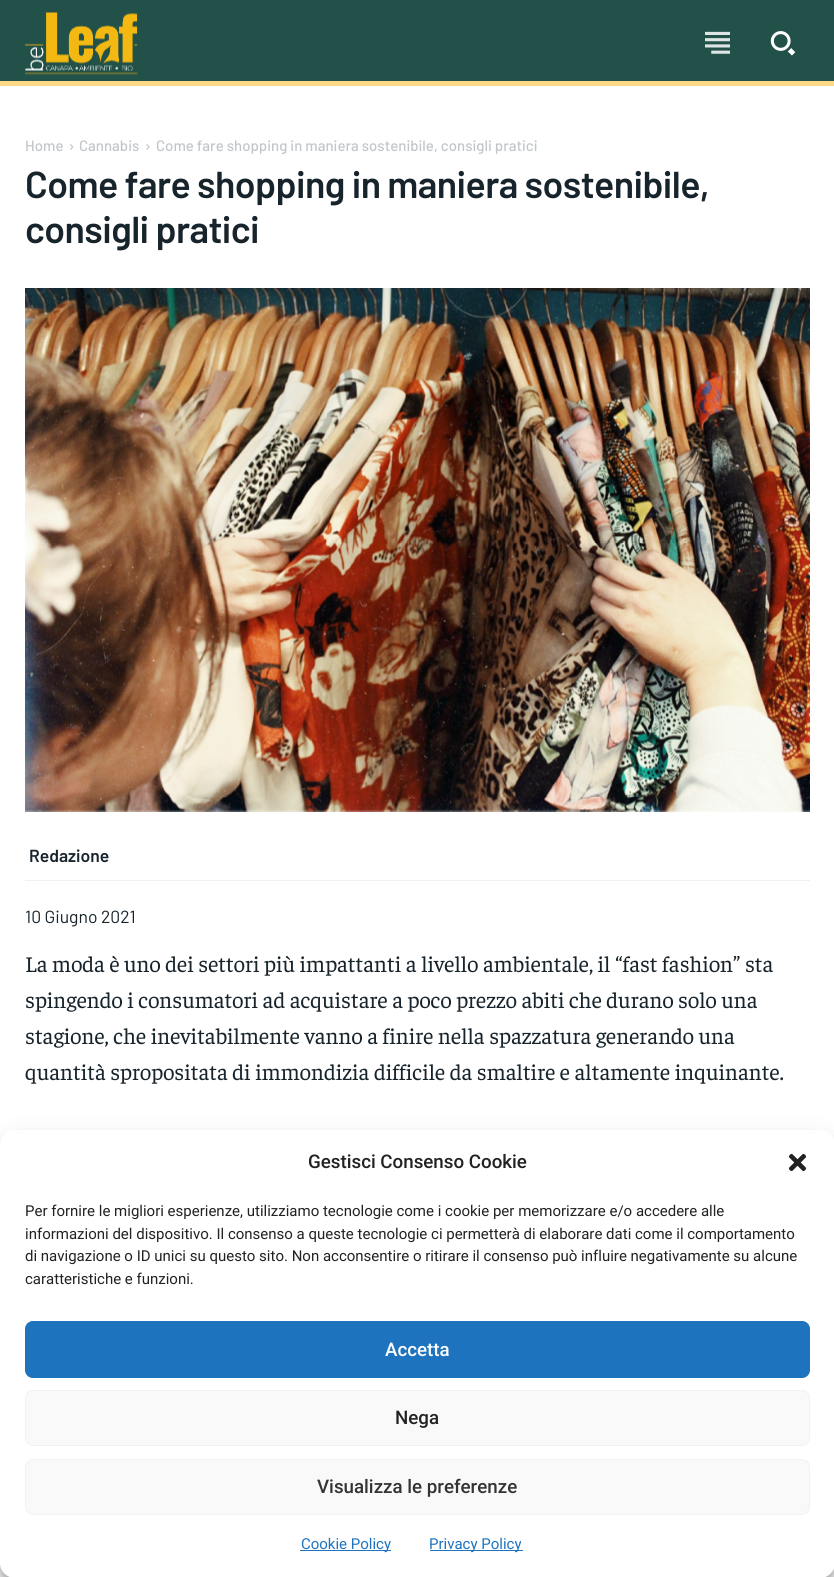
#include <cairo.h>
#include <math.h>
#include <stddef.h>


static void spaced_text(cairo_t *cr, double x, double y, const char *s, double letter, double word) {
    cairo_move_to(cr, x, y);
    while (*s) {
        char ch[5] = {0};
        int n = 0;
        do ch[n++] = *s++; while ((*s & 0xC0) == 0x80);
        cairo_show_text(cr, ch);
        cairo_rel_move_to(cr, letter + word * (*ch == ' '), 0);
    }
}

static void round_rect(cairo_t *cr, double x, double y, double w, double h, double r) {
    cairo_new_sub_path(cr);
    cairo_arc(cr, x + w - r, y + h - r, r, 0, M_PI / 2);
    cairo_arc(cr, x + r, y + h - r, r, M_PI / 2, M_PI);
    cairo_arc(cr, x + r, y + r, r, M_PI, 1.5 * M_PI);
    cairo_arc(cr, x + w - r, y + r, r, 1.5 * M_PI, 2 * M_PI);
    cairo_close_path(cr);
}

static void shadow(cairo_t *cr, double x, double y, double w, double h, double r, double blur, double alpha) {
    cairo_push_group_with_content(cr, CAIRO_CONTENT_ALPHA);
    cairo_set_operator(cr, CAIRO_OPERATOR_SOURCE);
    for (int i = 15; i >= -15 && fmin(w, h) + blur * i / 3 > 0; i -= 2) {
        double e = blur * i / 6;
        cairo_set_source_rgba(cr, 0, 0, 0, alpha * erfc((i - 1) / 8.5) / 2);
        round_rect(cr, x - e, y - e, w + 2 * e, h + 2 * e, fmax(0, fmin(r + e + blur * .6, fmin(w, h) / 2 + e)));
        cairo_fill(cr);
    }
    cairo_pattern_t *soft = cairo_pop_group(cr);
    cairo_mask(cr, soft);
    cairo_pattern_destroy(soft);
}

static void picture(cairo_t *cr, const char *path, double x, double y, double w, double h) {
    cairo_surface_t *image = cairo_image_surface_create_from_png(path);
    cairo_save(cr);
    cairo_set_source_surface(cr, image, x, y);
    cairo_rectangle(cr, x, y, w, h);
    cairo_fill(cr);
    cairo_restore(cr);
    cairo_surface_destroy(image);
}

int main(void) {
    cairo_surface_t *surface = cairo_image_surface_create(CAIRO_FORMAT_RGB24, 834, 1577);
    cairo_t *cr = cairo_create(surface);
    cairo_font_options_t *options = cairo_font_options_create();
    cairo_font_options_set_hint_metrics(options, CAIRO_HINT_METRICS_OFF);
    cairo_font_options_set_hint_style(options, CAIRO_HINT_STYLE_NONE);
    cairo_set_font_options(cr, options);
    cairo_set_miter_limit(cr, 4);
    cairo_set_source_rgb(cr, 1, 1, 1);
    cairo_paint(cr);
    cairo_set_source_rgb(cr, 0.133, 0.318, 0.286);
    cairo_rectangle(cr, 0, 0, 834, 81);
    cairo_fill(cr);
    cairo_set_source_rgb(cr, 1, 0.851, 0.533);
    cairo_rectangle(cr, 0, 81, 834, 5);
    cairo_fill(cr);
    picture(cr, "img1.png", 25, 12, 113, 63);
    picture(cr, "img2.png", 705, 31, 25, 23);
    picture(cr, "img3.png", 770, 31, 26, 25);
    cairo_select_font_face(cr, "Barlow Medium", CAIRO_FONT_SLANT_NORMAL, CAIRO_FONT_WEIGHT_NORMAL);
    cairo_set_font_size(cr, 15);
    cairo_set_source_rgb(cr, 0.757, 0.776, 0.792);
    cairo_move_to(cr, 25, 151);
    cairo_show_text(cr, "Home");
    picture(cr, "img4.png", 70, 144, 4, 6);
    cairo_move_to(cr, 79, 151);
    cairo_show_text(cr, "Cannabis");
    picture(cr, "img5.png", 146, 144, 4, 6);
    cairo_move_to(cr, 156, 151);
    cairo_show_text(cr, "Come fare shopping in maniera sostenibile, consigli pratici");
    cairo_select_font_face(cr, "Barlow SemiBold", CAIRO_FONT_SLANT_NORMAL, CAIRO_FONT_WEIGHT_NORMAL);
    cairo_set_font_size(cr, 37.5);
    cairo_set_source_rgb(cr, 0.094, 0.141, 0.173);
    spaced_text(cr, 25, 198, "Come fare shopping in maniera sostenibile,", -0.6, 0);
    spaced_text(cr, 25, 243, "consigli pratici", -0.6, 0);
    picture(cr, "img6.png", 25, 288, 785, 524);
    cairo_set_source_rgb(cr, 0.933, 0.941, 0.957);
    cairo_rectangle(cr, 25, 880, 785, 1);
    cairo_fill(cr);
    cairo_set_font_size(cr, 17.5);
    cairo_set_source_rgb(cr, 0.094, 0.141, 0.173);
    cairo_move_to(cr, 29, 862);
    cairo_show_text(cr, "Redazione");
    cairo_select_font_face(cr, "Barlow", CAIRO_FONT_SLANT_NORMAL, CAIRO_FONT_WEIGHT_NORMAL);
    cairo_move_to(cr, 25, 923);
    cairo_show_text(cr, "10 Giugno 2021");
    cairo_select_font_face(cr, "Faustina", CAIRO_FONT_SLANT_NORMAL, CAIRO_FONT_WEIGHT_NORMAL);
    cairo_set_font_size(cr, 22.5);
    cairo_move_to(cr, 25, 972);
    cairo_show_text(cr, "La moda è uno dei settori più impattanti a livello ambientale, il “fast fashion” sta");
    cairo_move_to(cr, 25, 1008);
    cairo_show_text(cr, "spingendo i consumatori ad acquistare a poco prezzo abiti che durano solo una");
    cairo_move_to(cr, 25, 1044);
    cairo_show_text(cr, "stagione, che inevitabilmente vanno a finire nella spazzatura generando una");
    cairo_move_to(cr, 25, 1080);
    cairo_show_text(cr, "quantità spropositata di immondizia difficile da smaltire e altamente inquinante.");
    cairo_set_source_rgb(cr, 0, 0, 0);
    shadow(cr, 0, 1138, 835, 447, 15, 4, 0.23);
    shadow(cr, 0, 1143, 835, 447, 15, 12.5, 0.19);
    cairo_set_source_rgb(cr, 1, 1, 1);
    round_rect(cr, 0, 1130, 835, 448, 15);
    cairo_fill(cr);
    cairo_select_font_face(cr, "Roboto Medium", CAIRO_FONT_SLANT_NORMAL, CAIRO_FONT_WEIGHT_NORMAL);
    cairo_set_font_size(cr, 18.75);
    cairo_set_source_rgb(cr, 0.133, 0.133, 0.133);
    cairo_move_to(cr, 308, 1168);
    cairo_show_text(cr, "Gestisci Consenso Cookie");
    picture(cr, "img7.png", 788, 1153, 19, 19);
    cairo_select_font_face(cr, "Roboto", CAIRO_FONT_SLANT_NORMAL, CAIRO_FONT_WEIGHT_NORMAL);
    cairo_set_font_size(cr, 15);
    cairo_move_to(cr, 25, 1216);
    cairo_show_text(cr, "Per fornire le migliori esperienze, utilizziamo tecnologie come i cookie per memorizzare e/o accedere alle");
    cairo_move_to(cr, 25, 1239);
    cairo_show_text(cr, "informazioni del dispositivo. Il consenso a queste tecnologie ci permetterà di elaborare dati come il comportamento");
    cairo_move_to(cr, 25, 1261);
    cairo_show_text(cr, "di navigazione o ID unici su questo sito. Non acconsentire o ritirare il consenso può influire negativamente su alcune");
    cairo_move_to(cr, 25, 1284);
    cairo_show_text(cr, "caratteristiche e funzioni.");
    cairo_set_source_rgb(cr, 0.118, 0.451, 0.745);
    round_rect(cr, 25.5, 1321.5, 784, 56, 7.5);
    cairo_fill_preserve(cr);
    cairo_set_line_width(cr, 1);
    cairo_stroke(cr);
    cairo_select_font_face(cr, "Roboto Medium", CAIRO_FONT_SLANT_NORMAL, CAIRO_FONT_WEIGHT_NORMAL);
    cairo_set_font_size(cr, 18.75);
    cairo_set_source_rgb(cr, 1, 1, 1);
    cairo_move_to(cr, 385, 1356);
    cairo_show_text(cr, "Accetta");
    cairo_set_source_rgb(cr, 0.976, 0.976, 0.976);
    round_rect(cr, 25.5, 1390.5, 784, 55, 7.5);
    cairo_fill_preserve(cr);
    cairo_set_source_rgb(cr, 0.949, 0.949, 0.949);
    cairo_stroke(cr);
    cairo_set_source_rgb(cr, 0.133, 0.133, 0.133);
    cairo_move_to(cr, 395, 1424);
    cairo_show_text(cr, "Nega");
    cairo_set_source_rgb(cr, 0.976, 0.976, 0.976);
    round_rect(cr, 25.5, 1459.5, 784, 55, 7.5);
    cairo_fill_preserve(cr);
    cairo_set_source_rgb(cr, 0.949, 0.949, 0.949);
    cairo_stroke(cr);
    cairo_set_source_rgb(cr, 0.2, 0.2, 0.2);
    cairo_move_to(cr, 317, 1493);
    cairo_show_text(cr, "Visualizza le preferenze");
    cairo_set_source_rgb(cr, 0.118, 0.451, 0.745);
    cairo_rectangle(cr, 300, 1550, 91, 1);
    cairo_fill(cr);
    cairo_select_font_face(cr, "Roboto", CAIRO_FONT_SLANT_NORMAL, CAIRO_FONT_WEIGHT_NORMAL);
    cairo_set_font_size(cr, 15);
    cairo_move_to(cr, 301, 1549);
    cairo_show_text(cr, "Cookie Policy");
    cairo_rectangle(cr, 430, 1550, 93, 1);
    cairo_fill(cr);
    cairo_move_to(cr, 429, 1549);
    cairo_show_text(cr, "Privacy Policy");
    cairo_surface_write_to_png(surface, "page.png");
    cairo_font_options_destroy(options);
    cairo_destroy(cr);
    cairo_surface_destroy(surface);
    return 0;
}
